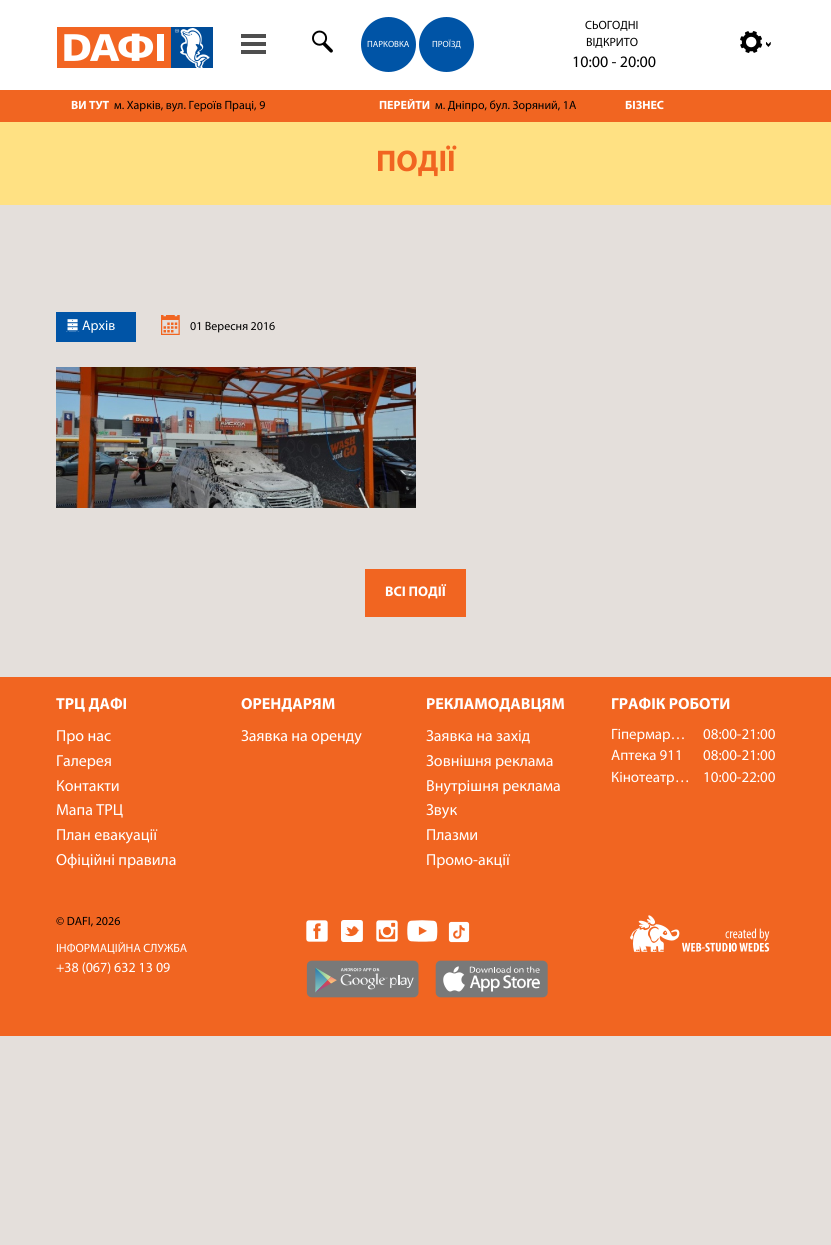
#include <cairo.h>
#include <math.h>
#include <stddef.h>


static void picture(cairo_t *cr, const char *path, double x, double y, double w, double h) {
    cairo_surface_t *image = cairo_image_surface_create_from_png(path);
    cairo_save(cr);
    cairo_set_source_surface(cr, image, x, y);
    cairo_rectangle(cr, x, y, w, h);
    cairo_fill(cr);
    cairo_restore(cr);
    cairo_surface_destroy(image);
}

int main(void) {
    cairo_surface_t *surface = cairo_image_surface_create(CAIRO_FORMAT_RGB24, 831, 1245);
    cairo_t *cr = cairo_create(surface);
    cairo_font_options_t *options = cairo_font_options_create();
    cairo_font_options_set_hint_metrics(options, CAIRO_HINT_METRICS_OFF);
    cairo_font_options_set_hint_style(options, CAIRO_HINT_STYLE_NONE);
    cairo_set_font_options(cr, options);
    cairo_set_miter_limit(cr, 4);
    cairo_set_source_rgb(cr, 0.894, 0.875, 0.859);
    cairo_paint(cr);
    cairo_set_source_rgb(cr, 1, 1, 1);
    cairo_rectangle(cr, 0, 0, 831, 90);
    cairo_fill(cr);
    picture(cr, "img1.png", 57, 27, 156, 41);
    cairo_set_source_rgb(cr, 0.306, 0.306, 0.306);
    cairo_rectangle(cr, 241, 42, 25, 4);
    cairo_fill(cr);
    cairo_rectangle(cr, 241, 34, 25, 4);
    cairo_fill(cr);
    cairo_rectangle(cr, 241, 50, 25, 4);
    cairo_fill(cr);
    picture(cr, "img2.png", 312, 30, 21, 23);
    cairo_set_source_rgb(cr, 0, 0.329, 0.651);
    cairo_arc(cr, 388.5, 44.5, 27.5, 0, 2 * M_PI);
    cairo_fill(cr);
    cairo_select_font_face(cr, "Myriad", CAIRO_FONT_SLANT_NORMAL, CAIRO_FONT_WEIGHT_NORMAL);
    cairo_set_font_size(cr, 9);
    cairo_set_source_rgb(cr, 1, 1, 1);
    cairo_move_to(cr, 367, 47);
    cairo_show_text(cr, "ПАРКОВКА");
    cairo_set_source_rgb(cr, 0, 0.329, 0.651);
    cairo_new_path(cr);
    cairo_arc(cr, 446.5, 44.5, 27.5, 0, 2 * M_PI);
    cairo_fill(cr);
    cairo_set_source_rgb(cr, 1, 1, 1);
    cairo_move_to(cr, 432, 47);
    cairo_show_text(cr, "ПРОЇЗД");
    cairo_set_font_size(cr, 12);
    cairo_set_source_rgb(cr, 0, 0, 0);
    cairo_move_to(cr, 585, 29);
    cairo_show_text(cr, "СЬОГОДНІ");
    cairo_move_to(cr, 586, 46);
    cairo_show_text(cr, "ВІДКРИТО");
    cairo_set_font_size(cr, 16);
    cairo_move_to(cr, 572, 67);
    cairo_show_text(cr, "10:00 - 20:00");
    picture(cr, "img3.png", 740, 31, 23, 22);
    picture(cr, "img4.png", 766, 42, 5, 5);
    cairo_set_source_rgb(cr, 0.945, 0.396, 0.129);
    cairo_rectangle(cr, 0, 90, 831, 32);
    cairo_fill(cr);
    cairo_select_font_face(cr, "Myriad", CAIRO_FONT_SLANT_NORMAL, CAIRO_FONT_WEIGHT_BOLD);
    cairo_set_font_size(cr, 12);
    cairo_set_source_rgb(cr, 1, 1, 1);
    cairo_move_to(cr, 71, 109);
    cairo_show_text(cr, "ВИ ТУТ");
    cairo_select_font_face(cr, "Myriad", CAIRO_FONT_SLANT_NORMAL, CAIRO_FONT_WEIGHT_NORMAL);
    cairo_set_source_rgb(cr, 0, 0, 0);
    cairo_move_to(cr, 114, 109);
    cairo_show_text(cr, "м. Харків, вул. Героїв Праці, 9");
    cairo_select_font_face(cr, "Myriad", CAIRO_FONT_SLANT_NORMAL, CAIRO_FONT_WEIGHT_BOLD);
    cairo_set_source_rgb(cr, 1, 1, 1);
    cairo_move_to(cr, 379, 109);
    cairo_show_text(cr, "ПЕРЕЙТИ");
    cairo_select_font_face(cr, "Myriad", CAIRO_FONT_SLANT_NORMAL, CAIRO_FONT_WEIGHT_NORMAL);
    cairo_set_source_rgb(cr, 0, 0, 0);
    cairo_move_to(cr, 435, 109);
    cairo_show_text(cr, "м. Дніпро, бул. Зоряний, 1А");
    cairo_select_font_face(cr, "Myriad", CAIRO_FONT_SLANT_NORMAL, CAIRO_FONT_WEIGHT_BOLD);
    cairo_set_source_rgb(cr, 1, 1, 1);
    cairo_move_to(cr, 625, 109);
    cairo_show_text(cr, "БІЗНЕС");
    cairo_set_source_rgb(cr, 1, 0.882, 0.514);
    cairo_rectangle(cr, 0, 122, 831, 83);
    cairo_fill(cr);
    cairo_set_font_size(cr, 30);
    cairo_set_source_rgb(cr, 0.945, 0.396, 0.129);
    cairo_move_to(cr, 376, 171);
    cairo_show_text(cr, "ПОДІЇ");
    cairo_set_source_rgb(cr, 0, 0.329, 0.651);
    cairo_rectangle(cr, 56, 312, 80, 30);
    cairo_fill(cr);
    picture(cr, "img5.png", 66, 319, 14, 13);
    cairo_select_font_face(cr, "Myriad", CAIRO_FONT_SLANT_NORMAL, CAIRO_FONT_WEIGHT_NORMAL);
    cairo_set_font_size(cr, 14);
    cairo_set_source_rgb(cr, 1, 1, 1);
    cairo_move_to(cr, 82, 330);
    cairo_show_text(cr, "Архів");
    picture(cr, "img6.png", 161, 315, 19, 20);
    cairo_set_font_size(cr, 12);
    cairo_set_source_rgb(cr, 0, 0, 0);
    cairo_move_to(cr, 190, 330);
    cairo_show_text(cr, "01 Вересня 2016");
    picture(cr, "img7.png", 56, 367, 360, 141);
    cairo_set_source_rgb(cr, 0.945, 0.396, 0.129);
    cairo_rectangle(cr, 365, 569, 101, 48);
    cairo_fill(cr);
    cairo_select_font_face(cr, "Myriad", CAIRO_FONT_SLANT_NORMAL, CAIRO_FONT_WEIGHT_BOLD);
    cairo_set_font_size(cr, 14);
    cairo_set_source_rgb(cr, 1, 1, 1);
    cairo_move_to(cr, 385, 596);
    cairo_show_text(cr, "ВСІ ПОДІЇ");
    cairo_set_source_rgb(cr, 0.945, 0.396, 0.129);
    cairo_rectangle(cr, 0, 677, 831, 359);
    cairo_fill(cr);
    cairo_set_font_size(cr, 16);
    cairo_set_source_rgb(cr, 1, 1, 1);
    cairo_move_to(cr, 56, 709);
    cairo_show_text(cr, "ТРЦ ДАФІ");
    cairo_select_font_face(cr, "Myriad", CAIRO_FONT_SLANT_NORMAL, CAIRO_FONT_WEIGHT_NORMAL);
    cairo_move_to(cr, 56, 741);
    cairo_show_text(cr, "Про нас");
    cairo_move_to(cr, 56, 766);
    cairo_show_text(cr, "Галерея");
    cairo_move_to(cr, 56, 791);
    cairo_show_text(cr, "Контакти");
    cairo_move_to(cr, 56, 815);
    cairo_show_text(cr, "Мапа ТРЦ");
    cairo_move_to(cr, 56, 840);
    cairo_show_text(cr, "План евакуації");
    cairo_move_to(cr, 56, 865);
    cairo_show_text(cr, "Офіційні правила");
    cairo_select_font_face(cr, "Myriad", CAIRO_FONT_SLANT_NORMAL, CAIRO_FONT_WEIGHT_BOLD);
    cairo_move_to(cr, 241, 709);
    cairo_show_text(cr, "ОРЕНДАРЯМ");
    cairo_select_font_face(cr, "Myriad", CAIRO_FONT_SLANT_NORMAL, CAIRO_FONT_WEIGHT_NORMAL);
    cairo_move_to(cr, 241, 741);
    cairo_show_text(cr, "Заявка на оренду");
    cairo_select_font_face(cr, "Myriad", CAIRO_FONT_SLANT_NORMAL, CAIRO_FONT_WEIGHT_BOLD);
    cairo_move_to(cr, 426, 709);
    cairo_show_text(cr, "РЕКЛАМОДАВЦЯМ");
    cairo_select_font_face(cr, "Myriad", CAIRO_FONT_SLANT_NORMAL, CAIRO_FONT_WEIGHT_NORMAL);
    cairo_move_to(cr, 426, 741);
    cairo_show_text(cr, "Заявка на захід");
    cairo_move_to(cr, 426, 766);
    cairo_show_text(cr, "Зовнішня реклама");
    cairo_move_to(cr, 426, 791);
    cairo_show_text(cr, "Внутрішня реклама");
    cairo_move_to(cr, 426, 815);
    cairo_show_text(cr, "Звук");
    cairo_move_to(cr, 426, 840);
    cairo_show_text(cr, "Плазми");
    cairo_move_to(cr, 426, 865);
    cairo_show_text(cr, "Промо-акції");
    cairo_select_font_face(cr, "Myriad", CAIRO_FONT_SLANT_NORMAL, CAIRO_FONT_WEIGHT_BOLD);
    cairo_move_to(cr, 611, 709);
    cairo_show_text(cr, "ГРАФІК РОБОТИ");
    cairo_select_font_face(cr, "Myriad", CAIRO_FONT_SLANT_NORMAL, CAIRO_FONT_WEIGHT_NORMAL);
    cairo_set_font_size(cr, 15);
    cairo_move_to(cr, 611, 739);
    cairo_show_text(cr, "Гіпермар…");
    cairo_move_to(cr, 703, 739);
    cairo_show_text(cr, "08:00-21:00");
    cairo_move_to(cr, 611, 760);
    cairo_show_text(cr, "Аптека 911");
    cairo_move_to(cr, 703, 760);
    cairo_show_text(cr, "08:00-21:00");
    cairo_move_to(cr, 611, 782);
    cairo_show_text(cr, "Кінотеатр…");
    cairo_move_to(cr, 703, 782);
    cairo_show_text(cr, "10:00-22:00");
    cairo_set_font_size(cr, 12);
    cairo_set_source_rgb(cr, 0, 0, 0);
    cairo_move_to(cr, 56, 925);
    cairo_show_text(cr, "© DAFI, 2026");
    cairo_set_source_rgb(cr, 1, 1, 1);
    cairo_move_to(cr, 56, 952);
    cairo_show_text(cr, "ІНФОРМАЦІЙНА СЛУЖБА");
    cairo_set_font_size(cr, 14);
    cairo_move_to(cr, 56, 972);
    cairo_show_text(cr, "+38 (067) 632 13 09");
    picture(cr, "img8.png", 306, 920, 22, 22);
    picture(cr, "img9.png", 341, 920, 22, 22);
    picture(cr, "img10.png", 376, 920, 22, 22);
    picture(cr, "img11.png", 407, 920, 31, 22);
    picture(cr, "img12.png", 448, 921, 22, 22);
    picture(cr, "img13.png", 306, 960, 113, 38);
    picture(cr, "img14.png", 435, 960, 113, 38);
    picture(cr, "img15.png", 630, 915, 140, 37);
    cairo_surface_write_to_png(surface, "page.png");
    cairo_font_options_destroy(options);
    cairo_destroy(cr);
    cairo_surface_destroy(surface);
    return 0;
}
